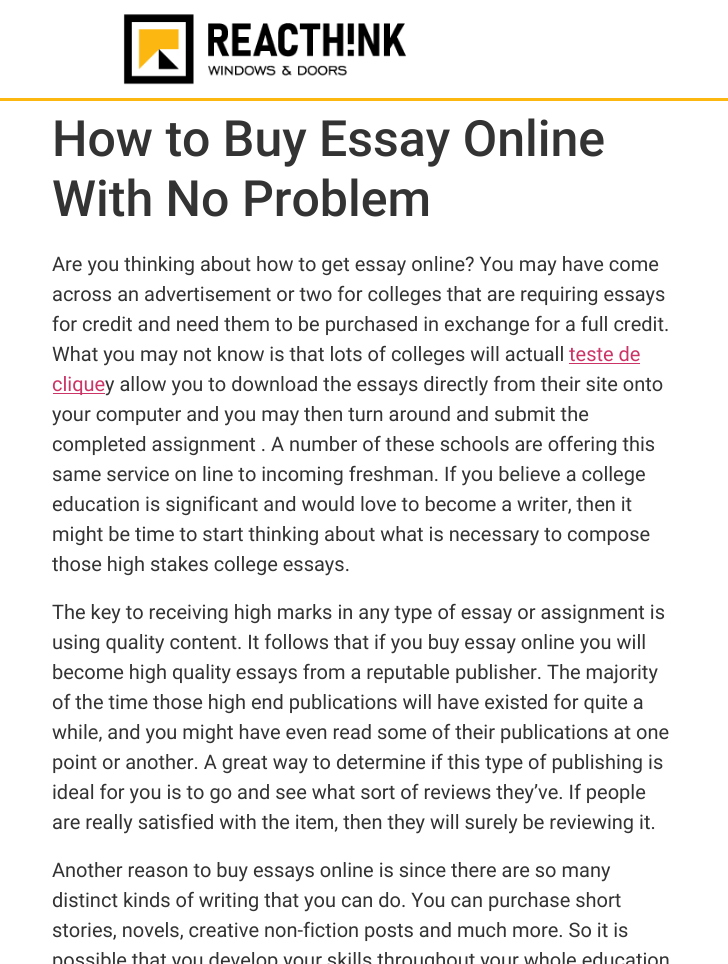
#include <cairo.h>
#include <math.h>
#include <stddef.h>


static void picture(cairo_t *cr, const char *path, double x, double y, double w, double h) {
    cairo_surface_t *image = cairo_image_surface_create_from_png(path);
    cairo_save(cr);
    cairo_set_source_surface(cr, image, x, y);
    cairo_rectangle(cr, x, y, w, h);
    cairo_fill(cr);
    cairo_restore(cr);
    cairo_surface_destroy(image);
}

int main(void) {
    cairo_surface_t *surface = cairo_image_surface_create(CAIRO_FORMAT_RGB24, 728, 964);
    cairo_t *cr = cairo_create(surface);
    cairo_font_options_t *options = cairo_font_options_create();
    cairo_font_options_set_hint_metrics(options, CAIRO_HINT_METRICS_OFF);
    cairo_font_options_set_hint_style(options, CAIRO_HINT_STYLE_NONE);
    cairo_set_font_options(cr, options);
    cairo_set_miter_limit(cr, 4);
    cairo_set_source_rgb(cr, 1, 1, 1);
    cairo_paint(cr);
    cairo_set_source_rgb(cr, 0.988, 0.722, 0.067);
    cairo_rectangle(cr, 0, 98, 728, 3);
    cairo_fill(cr);
    picture(cr, "img1.png", 123, 14, 284, 71);
    cairo_select_font_face(cr, "Roboto Medium", CAIRO_FONT_SLANT_NORMAL, CAIRO_FONT_WEIGHT_NORMAL);
    cairo_set_font_size(cr, 50);
    cairo_set_source_rgb(cr, 0.2, 0.2, 0.2);
    cairo_move_to(cr, 52, 156);
    cairo_show_text(cr, "How to Buy Essay Online");
    cairo_move_to(cr, 52, 216);
    cairo_show_text(cr, "With No Problem");
    cairo_select_font_face(cr, "Roboto", CAIRO_FONT_SLANT_NORMAL, CAIRO_FONT_WEIGHT_NORMAL);
    cairo_set_font_size(cr, 20);
    cairo_move_to(cr, 52, 271);
    cairo_show_text(cr, "Are you thinking about how to get essay online? You may have come");
    cairo_move_to(cr, 52, 301);
    cairo_show_text(cr, "across an advertisement or two for colleges that are requiring essays");
    cairo_move_to(cr, 52, 331);
    cairo_show_text(cr, "for credit and need them to be purchased in exchange for a full credit.");
    cairo_move_to(cr, 52, 361);
    cairo_show_text(cr, "What you may not know is that lots of colleges will actuall");
    cairo_set_source_rgb(cr, 0.8, 0.2, 0.4);
    cairo_move_to(cr, 569, 361);
    cairo_show_text(cr, "teste de");
    cairo_rectangle(cr, 569, 363, 71, 1);
    cairo_fill(cr);
    cairo_rectangle(cr, 53, 393, 52, 1);
    cairo_fill(cr);
    cairo_move_to(cr, 52, 391);
    cairo_show_text(cr, "clique");
    cairo_set_source_rgb(cr, 0.2, 0.2, 0.2);
    cairo_move_to(cr, 105, 391);
    cairo_show_text(cr, "y allow you to download the essays directly from their site onto");
    cairo_move_to(cr, 52, 421);
    cairo_show_text(cr, "your computer and you may then turn around and submit the");
    cairo_move_to(cr, 52, 451);
    cairo_show_text(cr, "completed assignment . A number of these schools are offering this");
    cairo_move_to(cr, 52, 481);
    cairo_show_text(cr, "same service on line to incoming freshman. If you believe a college");
    cairo_move_to(cr, 52, 511);
    cairo_show_text(cr, "education is significant and would love to become a writer, then it");
    cairo_move_to(cr, 52, 541);
    cairo_show_text(cr, "might be time to start thinking about what is necessary to compose");
    cairo_move_to(cr, 52, 571);
    cairo_show_text(cr, "those high stakes college essays.");
    cairo_move_to(cr, 52, 619);
    cairo_show_text(cr, "The key to receiving high marks in any type of essay or assignment is");
    cairo_move_to(cr, 52, 649);
    cairo_show_text(cr, "using quality content. It follows that if you buy essay online you will");
    cairo_move_to(cr, 52, 679);
    cairo_show_text(cr, "become high quality essays from a reputable publisher. The majority");
    cairo_move_to(cr, 52, 709);
    cairo_show_text(cr, "of the time those high end publications will have existed for quite a");
    cairo_move_to(cr, 52, 739);
    cairo_show_text(cr, "while, and you might have even read some of their publications at one");
    cairo_move_to(cr, 52, 769);
    cairo_show_text(cr, "point or another. A great way to determine if this type of publishing is");
    cairo_move_to(cr, 52, 799);
    cairo_show_text(cr, "ideal for you is to go and see what sort of reviews they’ve. If people");
    cairo_move_to(cr, 52, 829);
    cairo_show_text(cr, "are really satisfied with the item, then they will surely be reviewing it.");
    cairo_move_to(cr, 52, 877);
    cairo_show_text(cr, "Another reason to buy essays online is since there are so many");
    cairo_move_to(cr, 52, 907);
    cairo_show_text(cr, "distinct kinds of writing that you can do. You can purchase short");
    cairo_move_to(cr, 52, 937);
    cairo_show_text(cr, "stories, novels, creative non-fiction posts and much more. So it is");
    cairo_move_to(cr, 52, 967);
    cairo_show_text(cr, "possible that you develop your skills throughout your whole education");
    cairo_surface_write_to_png(surface, "page.png");
    cairo_font_options_destroy(options);
    cairo_destroy(cr);
    cairo_surface_destroy(surface);
    return 0;
}
